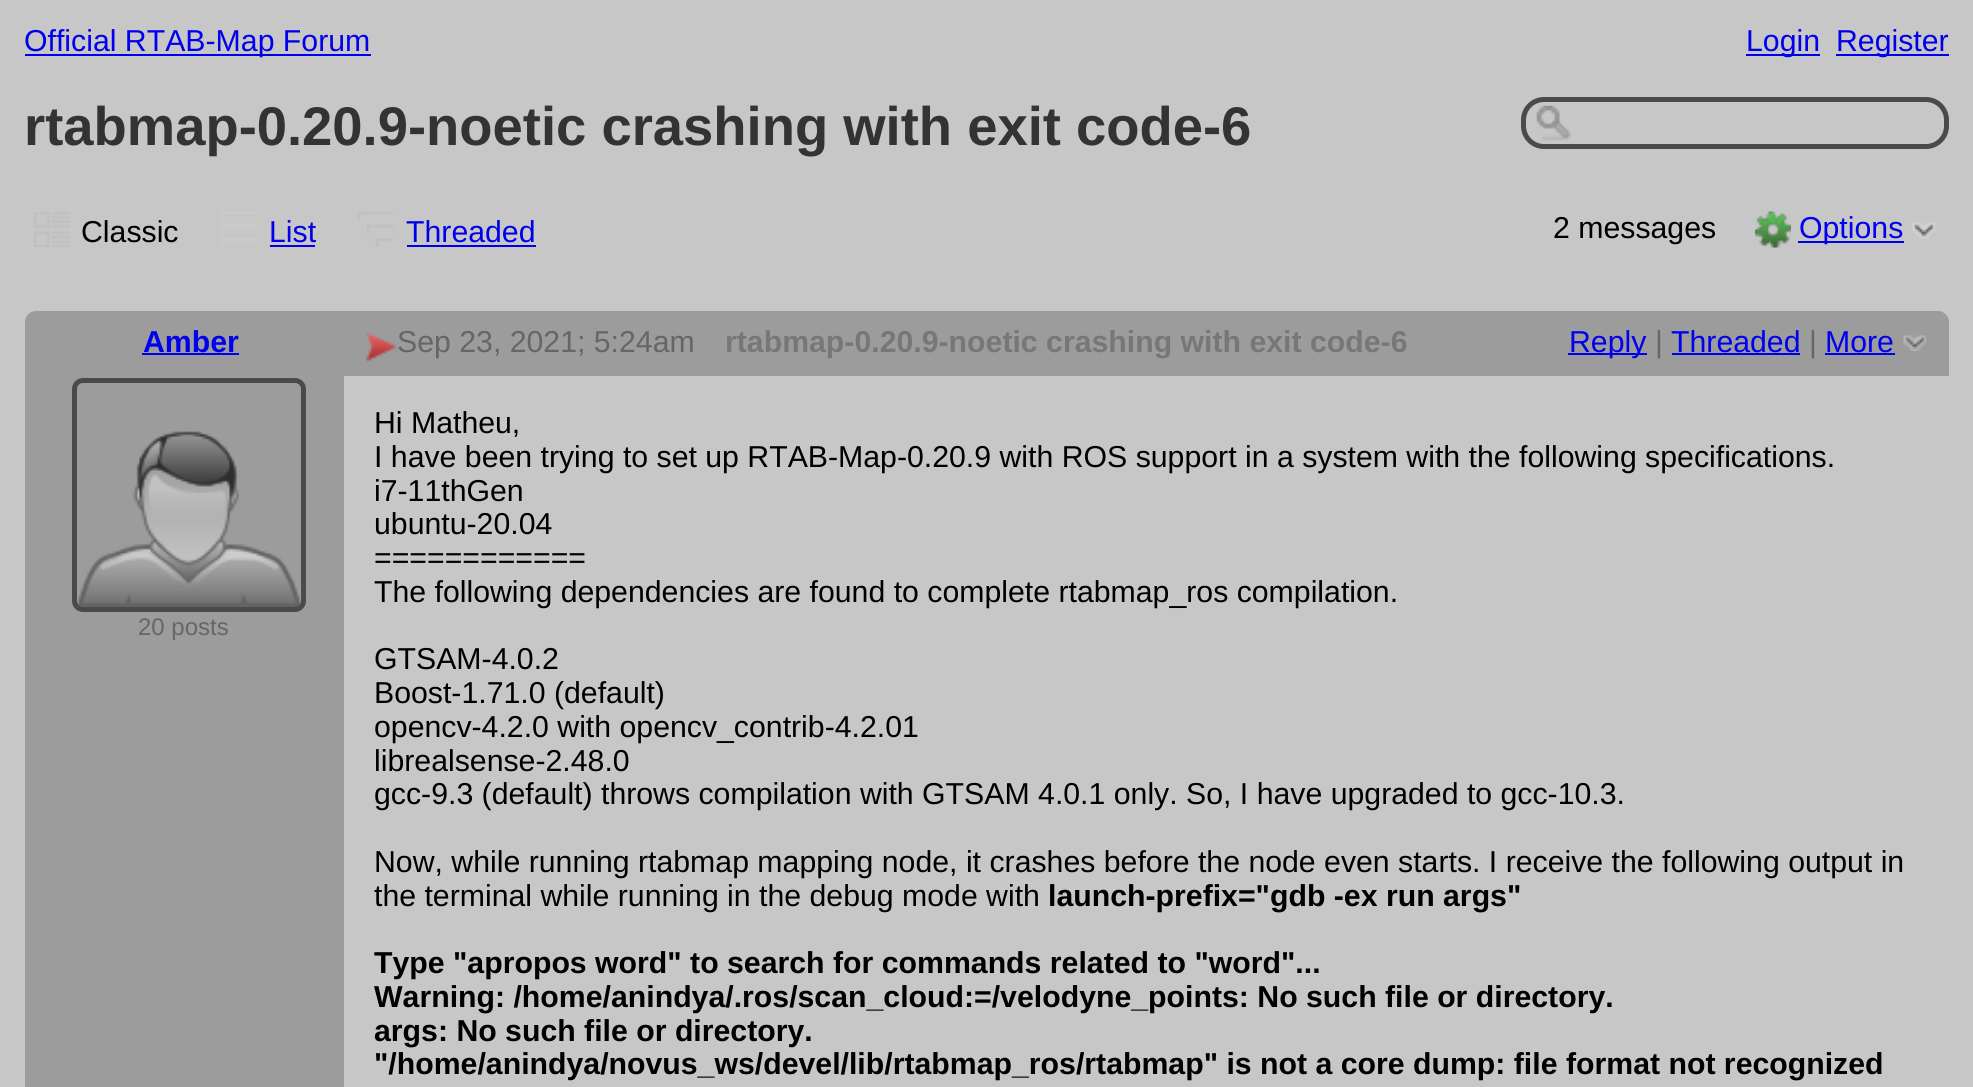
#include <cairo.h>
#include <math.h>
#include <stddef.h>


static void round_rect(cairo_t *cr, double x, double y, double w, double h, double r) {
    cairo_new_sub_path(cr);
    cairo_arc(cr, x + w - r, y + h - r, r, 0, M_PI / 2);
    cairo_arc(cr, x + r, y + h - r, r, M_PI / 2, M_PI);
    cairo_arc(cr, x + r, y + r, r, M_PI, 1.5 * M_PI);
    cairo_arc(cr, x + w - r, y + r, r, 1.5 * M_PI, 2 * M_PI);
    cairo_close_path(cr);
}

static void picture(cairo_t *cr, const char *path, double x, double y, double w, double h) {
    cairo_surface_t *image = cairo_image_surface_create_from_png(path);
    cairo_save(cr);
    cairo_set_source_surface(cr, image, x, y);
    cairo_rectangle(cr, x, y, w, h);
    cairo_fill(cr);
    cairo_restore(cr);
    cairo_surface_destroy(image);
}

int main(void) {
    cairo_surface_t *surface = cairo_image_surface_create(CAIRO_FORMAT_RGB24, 1973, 1087);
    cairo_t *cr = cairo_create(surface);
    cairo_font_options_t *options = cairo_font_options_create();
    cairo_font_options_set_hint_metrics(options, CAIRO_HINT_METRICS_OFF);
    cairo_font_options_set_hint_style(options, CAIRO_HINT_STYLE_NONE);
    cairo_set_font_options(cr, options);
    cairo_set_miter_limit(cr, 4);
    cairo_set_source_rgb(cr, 0.78, 0.78, 0.78);
    cairo_paint(cr);
    cairo_set_source_rgb(cr, 0, 0, 0.933);
    cairo_rectangle(cr, 25, 54, 346, 2);
    cairo_fill(cr);
    cairo_select_font_face(cr, "Liberation Sans", CAIRO_FONT_SLANT_NORMAL, CAIRO_FONT_WEIGHT_NORMAL);
    cairo_set_font_size(cr, 30.25);
    cairo_move_to(cr, 24, 51);
    cairo_show_text(cr, "Official RTAB-Map Forum");
    cairo_rectangle(cr, 1746, 54, 74, 2);
    cairo_fill(cr);
    cairo_move_to(cr, 1746, 51);
    cairo_show_text(cr, "Login");
    cairo_rectangle(cr, 1836, 54, 113, 2);
    cairo_fill(cr);
    cairo_move_to(cr, 1836, 51);
    cairo_show_text(cr, "Register");
    cairo_select_font_face(cr, "Liberation Sans", CAIRO_FONT_SLANT_NORMAL, CAIRO_FONT_WEIGHT_BOLD);
    cairo_set_font_size(cr, 54.4);
    cairo_set_source_rgb(cr, 0.2, 0.2, 0.2);
    cairo_move_to(cr, 24, 145);
    cairo_show_text(cr, "rtabmap-0.20.9-noetic crashing with exit code-6");
    picture(cr, "img1.png", 1536, 105, 35, 36);
    round_rect(cr, 1523.5, 99.5, 423, 47, 20.5);
    cairo_set_source_rgb(cr, 0.29, 0.29, 0.29);
    cairo_set_line_width(cr, 5);
    cairo_stroke(cr);
    picture(cr, "img2.png", 34, 212, 36, 35);
    cairo_select_font_face(cr, "Liberation Sans", CAIRO_FONT_SLANT_NORMAL, CAIRO_FONT_WEIGHT_NORMAL);
    cairo_set_font_size(cr, 30.25);
    cairo_set_source_rgb(cr, 0, 0, 0);
    cairo_move_to(cr, 81, 242);
    cairo_show_text(cr, "Classic");
    picture(cr, "img3.png", 221, 212, 35, 35);
    cairo_set_source_rgb(cr, 0, 0, 0.933);
    cairo_move_to(cr, 269, 242);
    cairo_show_text(cr, "List");
    cairo_rectangle(cr, 270, 245, 45, 2);
    cairo_fill(cr);
    picture(cr, "img4.png", 358, 212, 36, 35);
    cairo_move_to(cr, 406, 242);
    cairo_show_text(cr, "Threaded");
    cairo_rectangle(cr, 407, 245, 129, 2);
    cairo_fill(cr);
    cairo_set_source_rgb(cr, 0, 0, 0);
    cairo_move_to(cr, 1553, 238);
    cairo_show_text(cr, "2 messages");
    picture(cr, "img5.png", 1755, 211, 36, 37);
    cairo_set_source_rgb(cr, 0, 0, 0.933);
    cairo_rectangle(cr, 1798, 241, 106, 2);
    cairo_fill(cr);
    cairo_move_to(cr, 1799, 238);
    cairo_show_text(cr, "Options");
    picture(cr, "img6.png", 1912, 222, 23, 17);
    cairo_set_source_rgb(cr, 0.612, 0.612, 0.612);
    cairo_new_path(cr);
    cairo_move_to(cr, 36, 311);
    cairo_line_to(cr, 1938, 311);
    cairo_curve_to(cr, 1944, 311, 1949, 316, 1949, 322);
    cairo_line_to(cr, 1949, 376);
    cairo_line_to(cr, 25, 376);
    cairo_line_to(cr, 25, 322);
    cairo_curve_to(cr, 25, 316, 30, 311, 36, 311);
    cairo_close_path(cr);
    cairo_fill(cr);
    cairo_select_font_face(cr, "Liberation Sans", CAIRO_FONT_SLANT_NORMAL, CAIRO_FONT_WEIGHT_BOLD);
    cairo_set_source_rgb(cr, 0, 0, 0.933);
    cairo_move_to(cr, 143, 352);
    cairo_show_text(cr, "Amber");
    cairo_rectangle(cr, 142, 353, 97, 2);
    cairo_fill(cr);
    picture(cr, "img7.png", 366, 332, 31, 31);
    cairo_select_font_face(cr, "Liberation Sans", CAIRO_FONT_SLANT_NORMAL, CAIRO_FONT_WEIGHT_NORMAL);
    cairo_set_source_rgb(cr, 0.4, 0.4, 0.4);
    cairo_move_to(cr, 397, 352);
    cairo_show_text(cr, "Sep 23, 2021; 5:24am");
    cairo_select_font_face(cr, "Liberation Sans", CAIRO_FONT_SLANT_NORMAL, CAIRO_FONT_WEIGHT_BOLD);
    cairo_set_source_rgb(cr, 0.467, 0.467, 0.467);
    cairo_move_to(cr, 725, 352);
    cairo_show_text(cr, "rtabmap-0.20.9-noetic crashing with exit code-6");
    cairo_set_source_rgb(cr, 0, 0, 0.933);
    cairo_rectangle(cr, 1568, 353, 79, 2);
    cairo_fill(cr);
    cairo_select_font_face(cr, "Liberation Sans", CAIRO_FONT_SLANT_NORMAL, CAIRO_FONT_WEIGHT_NORMAL);
    cairo_move_to(cr, 1569, 352);
    cairo_show_text(cr, "Reply");
    cairo_set_source_rgb(cr, 0.4, 0.4, 0.4);
    cairo_move_to(cr, 1655, 352);
    cairo_show_text(cr, "|");
    cairo_set_source_rgb(cr, 0, 0, 0.933);
    cairo_move_to(cr, 1671, 352);
    cairo_show_text(cr, "Threaded");
    cairo_rectangle(cr, 1672, 353, 128, 2);
    cairo_fill(cr);
    cairo_set_source_rgb(cr, 0.4, 0.4, 0.4);
    cairo_move_to(cr, 1809, 352);
    cairo_show_text(cr, "|");
    cairo_set_source_rgb(cr, 0, 0, 0.933);
    cairo_move_to(cr, 1825, 352);
    cairo_show_text(cr, "More");
    cairo_rectangle(cr, 1825, 353, 70, 2);
    cairo_fill(cr);
    picture(cr, "img8.png", 1903, 335, 23, 16);
    cairo_set_source_rgb(cr, 0.612, 0.612, 0.612);
    cairo_rectangle(cr, 25, 376, 319, 711);
    cairo_fill(cr);
    round_rect(cr, 74.5, 380.5, 229, 229, 8.5);
    cairo_set_source_rgb(cr, 0.29, 0.29, 0.29);
    cairo_stroke(cr);
    picture(cr, "img9.png", 77, 431, 224, 176);
    cairo_set_font_size(cr, 24);
    cairo_set_source_rgb(cr, 0.4, 0.4, 0.4);
    cairo_move_to(cr, 138, 635);
    cairo_show_text(cr, "20 posts");
    cairo_set_font_size(cr, 30.25);
    cairo_set_source_rgb(cr, 0, 0, 0);
    cairo_move_to(cr, 374, 433);
    cairo_show_text(cr, "Hi Matheu,");
    cairo_move_to(cr, 374, 467);
    cairo_show_text(cr, "I have been trying to set up RTAB-Map-0.20.9 with ROS support in a system with the following specifications.");
    cairo_move_to(cr, 374, 501);
    cairo_show_text(cr, "i7-11thGen");
    cairo_move_to(cr, 374, 534);
    cairo_show_text(cr, "ubuntu-20.04");
    cairo_move_to(cr, 374, 568);
    cairo_show_text(cr, "============");
    cairo_move_to(cr, 374, 602);
    cairo_show_text(cr, "The following dependencies are found to complete rtabmap_ros compilation.");
    cairo_move_to(cr, 374, 669);
    cairo_show_text(cr, "GTSAM-4.0.2");
    cairo_move_to(cr, 374, 703);
    cairo_show_text(cr, "Boost-1.71.0 (default)");
    cairo_move_to(cr, 374, 737);
    cairo_show_text(cr, "opencv-4.2.0 with opencv_contrib-4.2.01");
    cairo_move_to(cr, 374, 771);
    cairo_show_text(cr, "librealsense-2.48.0");
    cairo_move_to(cr, 374, 804);
    cairo_show_text(cr, "gcc-9.3 (default) throws compilation with GTSAM 4.0.1 only. So, I have upgraded to gcc-10.3.");
    cairo_move_to(cr, 374, 872);
    cairo_show_text(cr, "Now, while running rtabmap mapping node, it crashes before the node even starts. I receive the following output in");
    cairo_move_to(cr, 374, 906);
    cairo_show_text(cr, "the terminal while running in the debug mode with");
    cairo_select_font_face(cr, "Liberation Sans", CAIRO_FONT_SLANT_NORMAL, CAIRO_FONT_WEIGHT_BOLD);
    cairo_move_to(cr, 1048, 906);
    cairo_show_text(cr, "launch-prefix=\"gdb -ex run args\"");
    cairo_move_to(cr, 374, 973);
    cairo_show_text(cr, "Type \"apropos word\" to search for commands related to \"word\"...");
    cairo_move_to(cr, 374, 1007);
    cairo_show_text(cr, "Warning: /home/anindya/.ros/scan_cloud:=/velodyne_points: No such file or directory.");
    cairo_move_to(cr, 374, 1041);
    cairo_show_text(cr, "args: No such file or directory.");
    cairo_move_to(cr, 374, 1074);
    cairo_show_text(cr, "\"/home/anindya/novus_ws/devel/lib/rtabmap_ros/rtabmap\" is not a core dump: file format not recognized");
    cairo_surface_write_to_png(surface, "page.png");
    cairo_font_options_destroy(options);
    cairo_destroy(cr);
    cairo_surface_destroy(surface);
    return 0;
}
